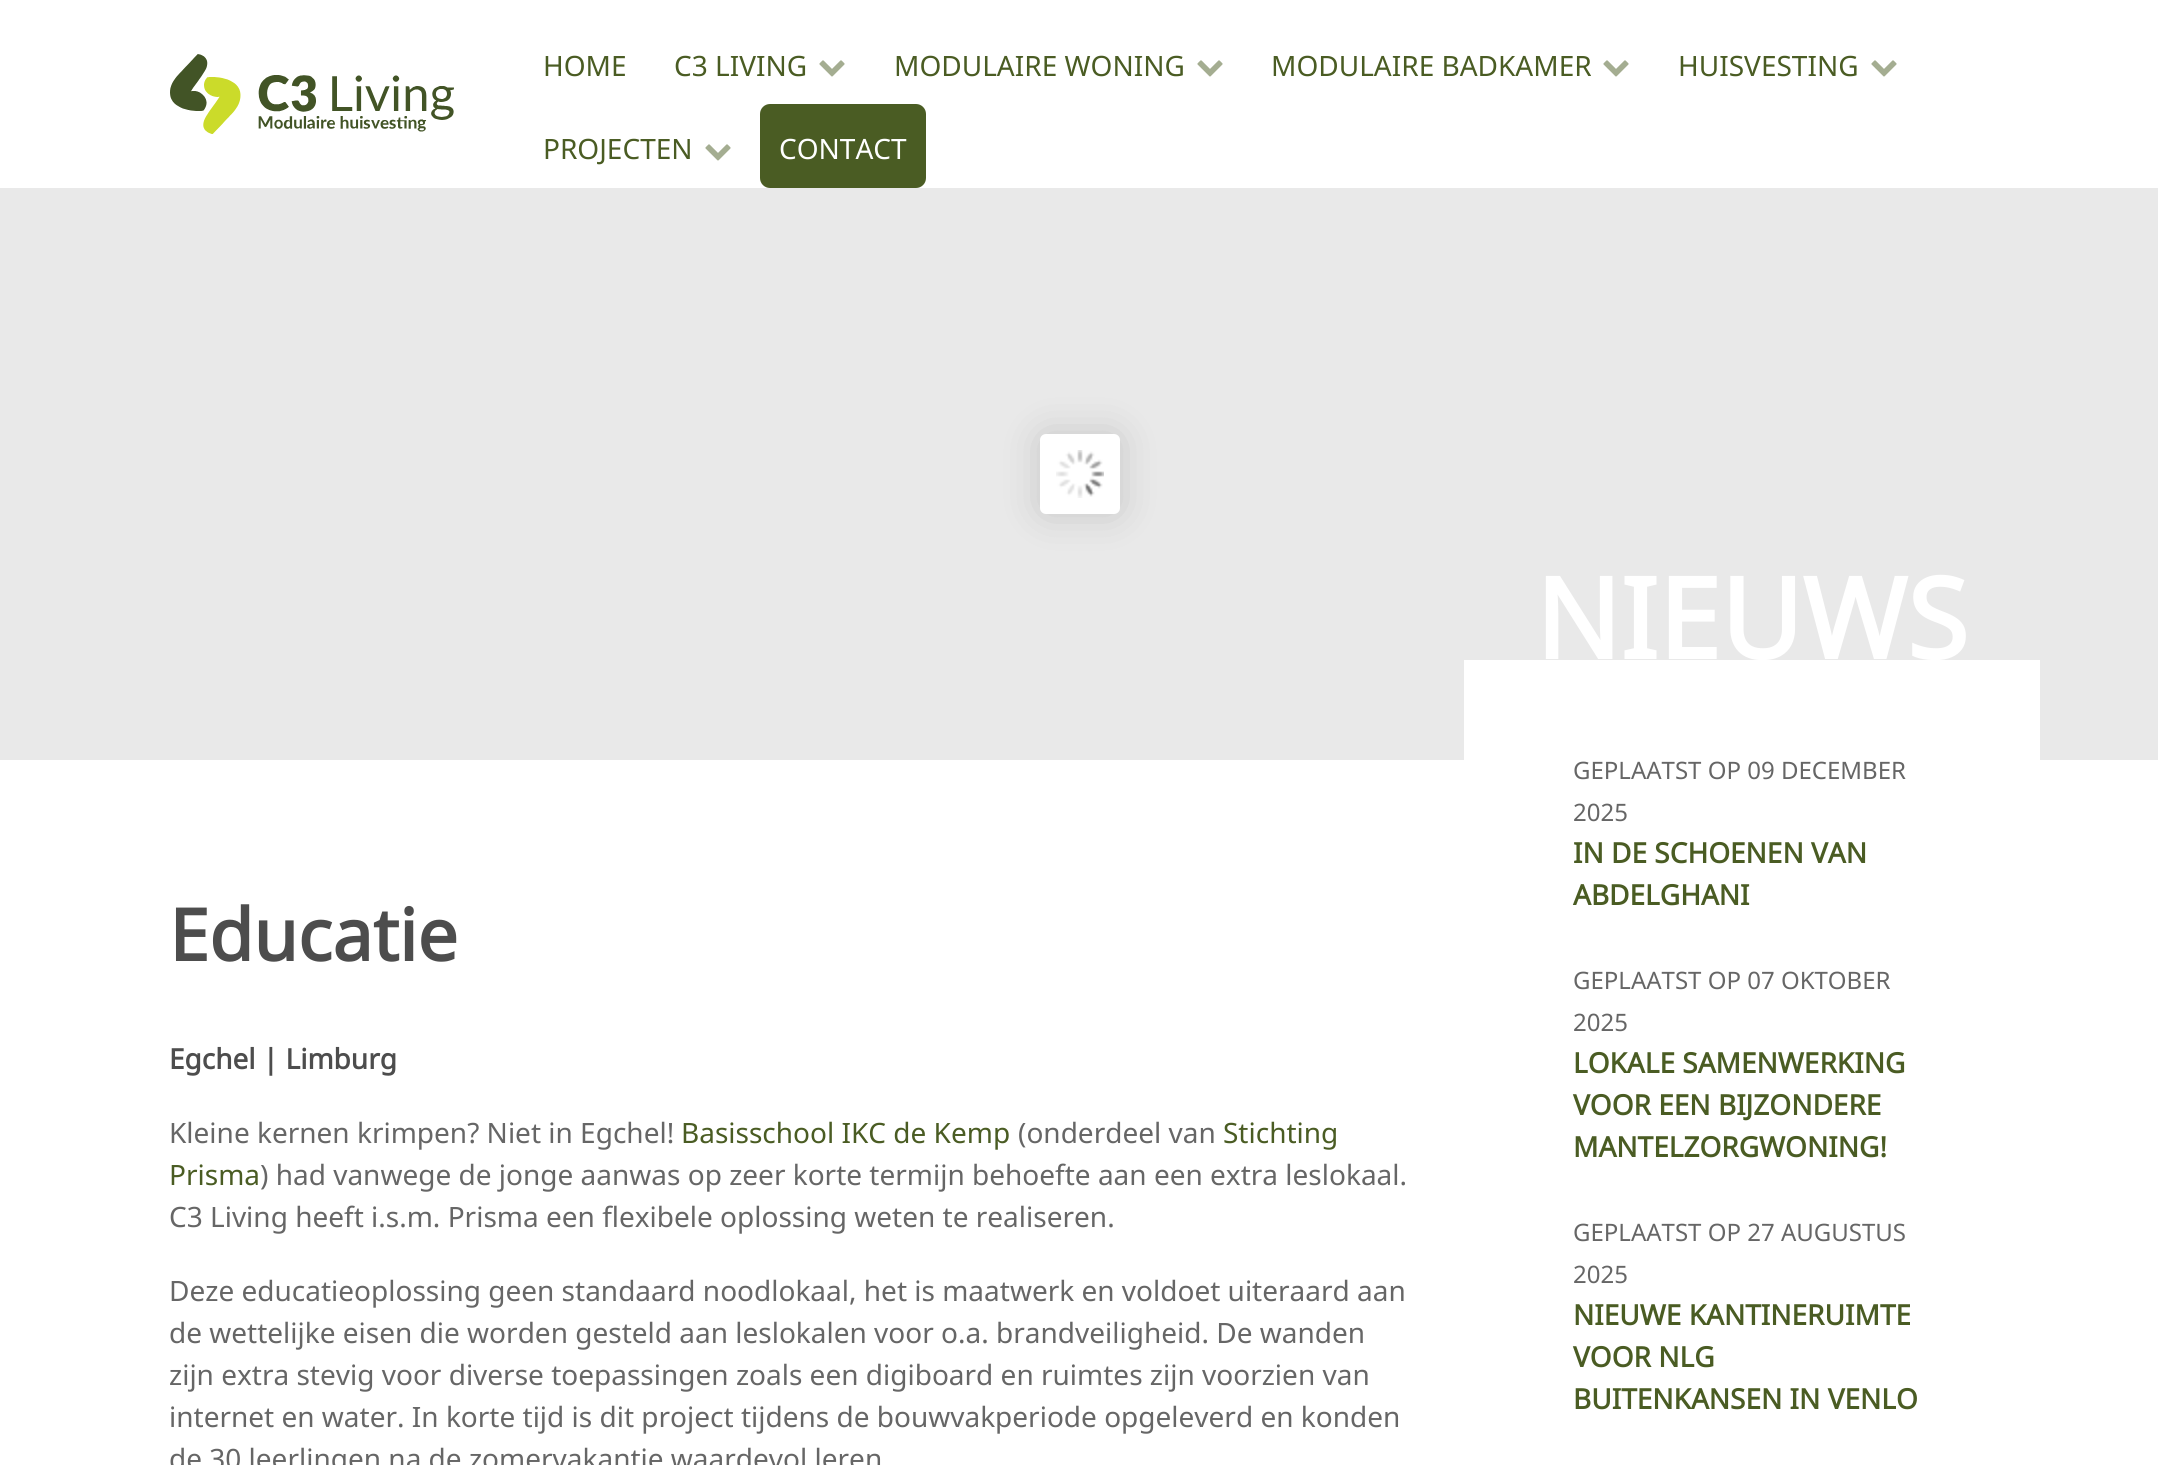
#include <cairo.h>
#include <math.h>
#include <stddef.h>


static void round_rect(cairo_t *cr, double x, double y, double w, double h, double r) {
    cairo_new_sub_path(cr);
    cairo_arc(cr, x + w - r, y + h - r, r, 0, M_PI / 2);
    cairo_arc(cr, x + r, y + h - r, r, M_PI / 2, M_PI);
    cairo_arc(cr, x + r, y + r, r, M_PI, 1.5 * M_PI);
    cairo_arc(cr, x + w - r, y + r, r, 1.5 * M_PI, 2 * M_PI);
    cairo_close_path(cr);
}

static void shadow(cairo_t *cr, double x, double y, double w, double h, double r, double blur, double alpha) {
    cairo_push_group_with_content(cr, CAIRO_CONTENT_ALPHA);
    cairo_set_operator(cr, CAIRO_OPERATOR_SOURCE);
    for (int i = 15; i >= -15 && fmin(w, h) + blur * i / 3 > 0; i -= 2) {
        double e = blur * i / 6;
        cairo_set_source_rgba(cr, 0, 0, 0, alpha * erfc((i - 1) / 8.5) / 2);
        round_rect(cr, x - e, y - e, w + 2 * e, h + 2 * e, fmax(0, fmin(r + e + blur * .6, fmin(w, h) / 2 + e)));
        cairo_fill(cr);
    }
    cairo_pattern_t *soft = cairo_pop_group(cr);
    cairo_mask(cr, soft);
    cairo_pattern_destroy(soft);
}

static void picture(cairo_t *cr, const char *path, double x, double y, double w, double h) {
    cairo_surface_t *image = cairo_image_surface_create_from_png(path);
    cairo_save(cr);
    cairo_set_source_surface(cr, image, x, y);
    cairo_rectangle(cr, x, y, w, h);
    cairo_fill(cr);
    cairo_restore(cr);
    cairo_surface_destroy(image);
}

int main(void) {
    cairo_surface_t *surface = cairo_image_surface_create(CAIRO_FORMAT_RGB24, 2158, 1465);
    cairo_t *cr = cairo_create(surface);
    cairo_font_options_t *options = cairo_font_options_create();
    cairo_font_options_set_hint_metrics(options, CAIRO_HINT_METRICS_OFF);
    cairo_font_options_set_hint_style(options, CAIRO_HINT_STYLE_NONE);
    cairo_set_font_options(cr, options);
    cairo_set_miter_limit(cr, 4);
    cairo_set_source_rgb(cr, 1, 1, 1);
    cairo_paint(cr);
    picture(cr, "img1.png", 170, 54, 284, 80);
    cairo_select_font_face(cr, "Noto Sans", CAIRO_FONT_SLANT_NORMAL, CAIRO_FONT_WEIGHT_NORMAL);
    cairo_set_font_size(cr, 28);
    cairo_set_source_rgb(cr, 0.29, 0.361, 0.137);
    cairo_move_to(cr, 543, 76);
    cairo_show_text(cr, "HOME");
    cairo_move_to(cr, 674, 76);
    cairo_show_text(cr, "C3 LIVING");
    picture(cr, "img2.png", 819, 60, 26, 17);
    cairo_move_to(cr, 894, 76);
    cairo_show_text(cr, "MODULAIRE WONING");
    picture(cr, "img2.png", 1197, 60, 26, 17);
    cairo_move_to(cr, 1271, 76);
    cairo_show_text(cr, "MODULAIRE BADKAMER");
    picture(cr, "img2.png", 1603, 60, 26, 17);
    cairo_move_to(cr, 1678, 76);
    cairo_show_text(cr, "HUISVESTING");
    picture(cr, "img2.png", 1871, 60, 26, 17);
    cairo_move_to(cr, 543, 159);
    cairo_show_text(cr, "PROJECTEN");
    picture(cr, "img2.png", 705, 144, 26, 17);
    round_rect(cr, 760, 104, 166, 84, 10);
    cairo_fill(cr);
    cairo_set_source_rgb(cr, 1, 1, 1);
    cairo_move_to(cr, 779, 159);
    cairo_show_text(cr, "CONTACT");
    cairo_set_source_rgb(cr, 0.914, 0.914, 0.914);
    cairo_rectangle(cr, 0, 188, 2158, 572);
    cairo_fill(cr);
    cairo_set_source_rgb(cr, 0, 0, 0);
    shadow(cr, 1040, 434, 80, 80, 6, 20, 0.15);
    cairo_set_source_rgb(cr, 1, 1, 1);
    round_rect(cr, 1040, 434, 80, 80, 6);
    cairo_fill(cr);
    picture(cr, "img3.png", 1056, 450, 48, 48);
    cairo_select_font_face(cr, "Noto Sans", CAIRO_FONT_SLANT_NORMAL, CAIRO_FONT_WEIGHT_BOLD);
    cairo_set_font_size(cr, 72);
    cairo_set_source_rgb(cr, 0.302, 0.302, 0.302);
    cairo_move_to(cr, 169, 961);
    cairo_show_text(cr, "Educatie");
    cairo_set_font_size(cr, 28);
    cairo_move_to(cr, 169, 1069);
    cairo_show_text(cr, "Egchel | Limburg");
    cairo_select_font_face(cr, "Noto Sans", CAIRO_FONT_SLANT_NORMAL, CAIRO_FONT_WEIGHT_NORMAL);
    cairo_set_source_rgb(cr, 0.4, 0.4, 0.4);
    cairo_move_to(cr, 169, 1143);
    cairo_show_text(cr, "Kleine kernen krimpen? Niet in Egchel!");
    cairo_set_source_rgb(cr, 0.29, 0.361, 0.137);
    cairo_move_to(cr, 681, 1143);
    cairo_show_text(cr, "Basisschool IKC de Kemp");
    cairo_set_source_rgb(cr, 0.4, 0.4, 0.4);
    cairo_move_to(cr, 1018, 1143);
    cairo_show_text(cr, "(onderdeel van");
    cairo_set_source_rgb(cr, 0.29, 0.361, 0.137);
    cairo_move_to(cr, 1223, 1143);
    cairo_show_text(cr, "Stichting");
    cairo_move_to(cr, 169, 1185);
    cairo_show_text(cr, "Prisma");
    cairo_set_source_rgb(cr, 0.4, 0.4, 0.4);
    cairo_move_to(cr, 260, 1185);
    cairo_show_text(cr, ") had vanwege de jonge aanwas op zeer korte termijn behoefte aan een extra leslokaal.");
    cairo_move_to(cr, 169, 1227);
    cairo_show_text(cr, "C3 Living heeft i.s.m. Prisma een flexibele oplossing weten te realiseren.");
    cairo_move_to(cr, 169, 1301);
    cairo_show_text(cr, "Deze educatieoplossing geen standaard noodlokaal, het is maatwerk en voldoet uiteraard aan");
    cairo_move_to(cr, 169, 1343);
    cairo_show_text(cr, "de wettelijke eisen die worden gesteld aan leslokalen voor o.a. brandveiligheid. De wanden");
    cairo_move_to(cr, 169, 1385);
    cairo_show_text(cr, "zijn extra stevig voor diverse toepassingen zoals een digiboard en ruimtes zijn voorzien van");
    cairo_move_to(cr, 169, 1427);
    cairo_show_text(cr, "internet en water. In korte tijd is dit project tijdens de bouwvakperiode opgeleverd en konden");
    cairo_move_to(cr, 169, 1469);
    cairo_show_text(cr, "de 30 leerlingen na de zomervakantie waardevol leren");
    cairo_set_source_rgb(cr, 1, 1, 1);
    cairo_rectangle(cr, 1464, 660, 576, 100);
    cairo_fill(cr);
    cairo_select_font_face(cr, "Noto Sans", CAIRO_FONT_SLANT_NORMAL, CAIRO_FONT_WEIGHT_BOLD);
    cairo_set_font_size(cr, 112);
    cairo_move_to(cr, 1535, 659);
    cairo_show_text(cr, "NIEUWS");
    cairo_select_font_face(cr, "Noto Sans", CAIRO_FONT_SLANT_NORMAL, CAIRO_FONT_WEIGHT_NORMAL);
    cairo_set_font_size(cr, 24);
    cairo_set_source_rgb(cr, 0.4, 0.4, 0.4);
    cairo_move_to(cr, 1573, 779);
    cairo_show_text(cr, "GEPLAATST OP 09 DECEMBER");
    cairo_move_to(cr, 1573, 821);
    cairo_show_text(cr, "2025");
    cairo_select_font_face(cr, "Noto Sans", CAIRO_FONT_SLANT_NORMAL, CAIRO_FONT_WEIGHT_BOLD);
    cairo_set_font_size(cr, 28);
    cairo_set_source_rgb(cr, 0.29, 0.361, 0.137);
    cairo_move_to(cr, 1573, 863);
    cairo_show_text(cr, "IN DE SCHOENEN VAN");
    cairo_move_to(cr, 1573, 905);
    cairo_show_text(cr, "ABDELGHANI");
    cairo_select_font_face(cr, "Noto Sans", CAIRO_FONT_SLANT_NORMAL, CAIRO_FONT_WEIGHT_NORMAL);
    cairo_set_font_size(cr, 24);
    cairo_set_source_rgb(cr, 0.4, 0.4, 0.4);
    cairo_move_to(cr, 1573, 989);
    cairo_show_text(cr, "GEPLAATST OP 07 OKTOBER");
    cairo_move_to(cr, 1573, 1031);
    cairo_show_text(cr, "2025");
    cairo_select_font_face(cr, "Noto Sans", CAIRO_FONT_SLANT_NORMAL, CAIRO_FONT_WEIGHT_BOLD);
    cairo_set_font_size(cr, 28);
    cairo_set_source_rgb(cr, 0.29, 0.361, 0.137);
    cairo_move_to(cr, 1573, 1073);
    cairo_show_text(cr, "LOKALE SAMENWERKING");
    cairo_move_to(cr, 1573, 1115);
    cairo_show_text(cr, "VOOR EEN BIJZONDERE");
    cairo_move_to(cr, 1573, 1157);
    cairo_show_text(cr, "MANTELZORGWONING!");
    cairo_select_font_face(cr, "Noto Sans", CAIRO_FONT_SLANT_NORMAL, CAIRO_FONT_WEIGHT_NORMAL);
    cairo_set_font_size(cr, 24);
    cairo_set_source_rgb(cr, 0.4, 0.4, 0.4);
    cairo_move_to(cr, 1573, 1241);
    cairo_show_text(cr, "GEPLAATST OP 27 AUGUSTUS");
    cairo_move_to(cr, 1573, 1283);
    cairo_show_text(cr, "2025");
    cairo_select_font_face(cr, "Noto Sans", CAIRO_FONT_SLANT_NORMAL, CAIRO_FONT_WEIGHT_BOLD);
    cairo_set_font_size(cr, 28);
    cairo_set_source_rgb(cr, 0.29, 0.361, 0.137);
    cairo_move_to(cr, 1573, 1325);
    cairo_show_text(cr, "NIEUWE KANTINERUIMTE");
    cairo_move_to(cr, 1573, 1367);
    cairo_show_text(cr, "VOOR NLG");
    cairo_move_to(cr, 1573, 1409);
    cairo_show_text(cr, "BUITENKANSEN IN VENLO");
    cairo_surface_write_to_png(surface, "page.png");
    cairo_font_options_destroy(options);
    cairo_destroy(cr);
    cairo_surface_destroy(surface);
    return 0;
}
